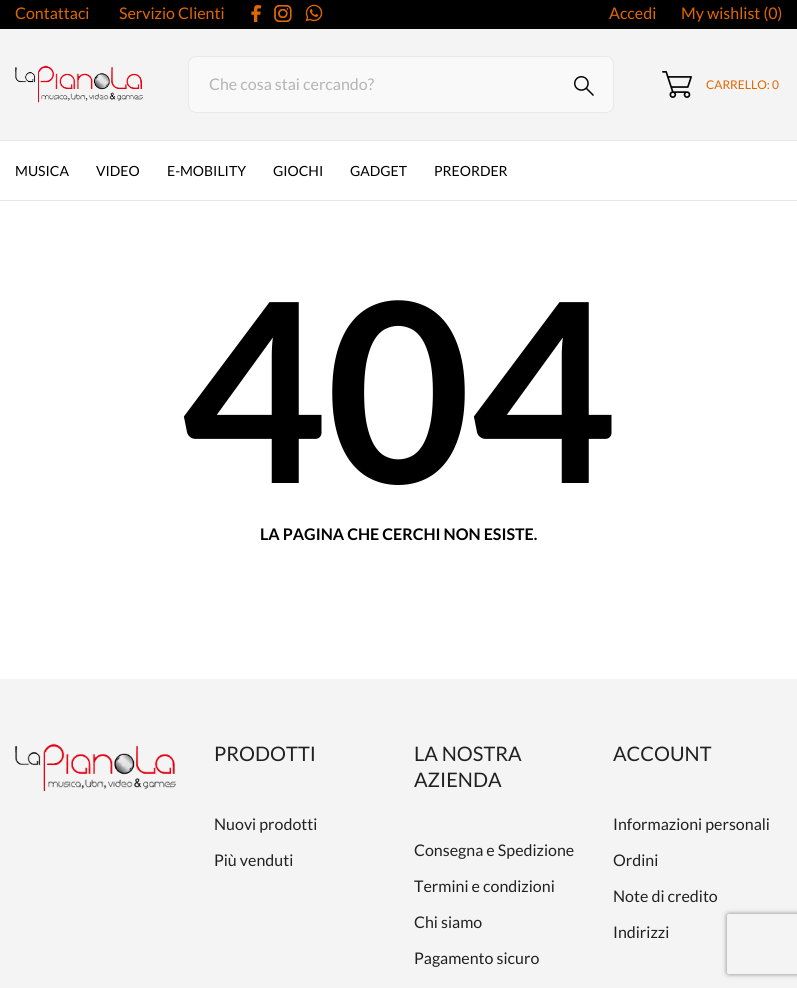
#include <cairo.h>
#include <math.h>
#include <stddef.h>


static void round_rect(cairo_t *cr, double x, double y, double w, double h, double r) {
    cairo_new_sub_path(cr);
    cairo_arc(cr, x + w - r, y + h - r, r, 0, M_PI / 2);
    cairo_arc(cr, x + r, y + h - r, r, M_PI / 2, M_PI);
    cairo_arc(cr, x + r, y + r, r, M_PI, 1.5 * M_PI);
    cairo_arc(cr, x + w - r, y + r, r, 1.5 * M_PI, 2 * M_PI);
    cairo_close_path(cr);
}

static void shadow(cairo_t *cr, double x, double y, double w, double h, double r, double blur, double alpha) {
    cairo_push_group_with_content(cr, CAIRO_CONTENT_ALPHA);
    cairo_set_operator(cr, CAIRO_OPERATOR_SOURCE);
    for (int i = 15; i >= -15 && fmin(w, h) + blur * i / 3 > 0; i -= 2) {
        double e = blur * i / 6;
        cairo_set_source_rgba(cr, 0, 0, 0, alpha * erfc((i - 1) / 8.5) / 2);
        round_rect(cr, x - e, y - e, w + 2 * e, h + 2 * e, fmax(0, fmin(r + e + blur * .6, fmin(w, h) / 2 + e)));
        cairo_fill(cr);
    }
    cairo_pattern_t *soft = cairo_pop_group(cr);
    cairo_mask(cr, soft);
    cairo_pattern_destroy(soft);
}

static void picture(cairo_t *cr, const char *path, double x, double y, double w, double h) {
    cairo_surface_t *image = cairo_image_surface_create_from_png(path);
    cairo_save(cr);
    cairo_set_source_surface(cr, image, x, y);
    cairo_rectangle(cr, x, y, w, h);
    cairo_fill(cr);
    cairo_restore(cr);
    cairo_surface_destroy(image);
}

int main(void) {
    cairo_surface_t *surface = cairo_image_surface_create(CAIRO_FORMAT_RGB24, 797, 988);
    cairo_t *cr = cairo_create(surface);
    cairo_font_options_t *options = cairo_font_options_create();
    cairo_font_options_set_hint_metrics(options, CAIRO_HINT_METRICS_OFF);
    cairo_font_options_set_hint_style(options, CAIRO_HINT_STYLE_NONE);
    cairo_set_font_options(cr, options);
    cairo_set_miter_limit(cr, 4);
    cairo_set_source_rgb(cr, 1, 1, 1);
    cairo_paint(cr);
    cairo_set_source_rgb(cr, 0.957, 0.957, 0.957);
    cairo_rectangle(cr, 0, 29, 797, 111);
    cairo_fill(cr);
    cairo_set_source_rgb(cr, 0, 0, 0);
    cairo_rectangle(cr, 0, 0, 797, 29);
    cairo_fill(cr);
    cairo_select_font_face(cr, "Lato", CAIRO_FONT_SLANT_NORMAL, CAIRO_FONT_WEIGHT_NORMAL);
    cairo_set_font_size(cr, 16);
    cairo_set_source_rgb(cr, 0.882, 0.404, 0);
    cairo_move_to(cr, 15, 19);
    cairo_show_text(cr, "Contattaci");
    cairo_move_to(cr, 119, 19);
    cairo_show_text(cr, "Servizio Clienti");
    picture(cr, "img1.png", 251, 5, 11, 17);
    picture(cr, "img2.png", 274, 5, 18, 17);
    picture(cr, "img3.png", 305, 4, 18, 18);
    cairo_move_to(cr, 609, 19);
    cairo_show_text(cr, "Accedi");
    cairo_move_to(cr, 681, 19);
    cairo_show_text(cr, "My wishlist (0)");
    picture(cr, "img4.png", 15, 65, 128, 38);
    cairo_set_source_rgb(cr, 0.976, 0.976, 0.976);
    round_rect(cr, 188.5, 56.5, 425, 56, 7.5);
    cairo_fill_preserve(cr);
    cairo_set_source_rgb(cr, 0.91, 0.91, 0.91);
    cairo_set_line_width(cr, 1);
    cairo_stroke(cr);
    cairo_set_source_rgb(cr, 0.706, 0.706, 0.706);
    cairo_move_to(cr, 209, 90);
    cairo_show_text(cr, "Che cosa stai cercando?");
    picture(cr, "img5.png", 574, 76, 20, 20);
    picture(cr, "img6.png", 662, 71, 30, 27);
    cairo_set_font_size(cr, 12);
    cairo_set_source_rgb(cr, 0.882, 0.404, 0);
    cairo_move_to(cr, 706, 89);
    cairo_show_text(cr, "CARRELLO: 0");
    cairo_set_source_rgb(cr, 0.91, 0.91, 0.91);
    cairo_rectangle(cr, 0, 140, 797, 1);
    cairo_fill(cr);
    cairo_rectangle(cr, 0, 200, 797, 1);
    cairo_fill(cr);
    cairo_set_font_size(cr, 14);
    cairo_set_source_rgb(cr, 0, 0, 0);
    cairo_move_to(cr, 15, 176);
    cairo_show_text(cr, "MUSICA");
    cairo_move_to(cr, 96, 176);
    cairo_show_text(cr, "VIDEO");
    cairo_move_to(cr, 167, 176);
    cairo_show_text(cr, "E-MOBILITY");
    cairo_move_to(cr, 273, 176);
    cairo_show_text(cr, "GIOCHI");
    cairo_move_to(cr, 350, 176);
    cairo_show_text(cr, "GADGET");
    cairo_move_to(cr, 434, 176);
    cairo_show_text(cr, "PREORDER");
    cairo_select_font_face(cr, "Lato", CAIRO_FONT_SLANT_NORMAL, CAIRO_FONT_WEIGHT_BOLD);
    cairo_set_font_size(cr, 250);
    cairo_move_to(cr, 181, 483);
    cairo_show_text(cr, "404");
    cairo_set_font_size(cr, 16);
    cairo_move_to(cr, 260, 540);
    cairo_show_text(cr, "LA PAGINA CHE CERCHI NON ESISTE.");
    cairo_set_source_rgb(cr, 0.957, 0.957, 0.957);
    cairo_rectangle(cr, 0, 679, 797, 309);
    cairo_fill(cr);
    picture(cr, "img7.png", 15, 743, 161, 49);
    cairo_select_font_face(cr, "Lato", CAIRO_FONT_SLANT_NORMAL, CAIRO_FONT_WEIGHT_NORMAL);
    cairo_set_font_size(cr, 20);
    cairo_set_source_rgb(cr, 0.129, 0.129, 0.129);
    cairo_move_to(cr, 214, 761);
    cairo_show_text(cr, "PRODOTTI");
    cairo_set_font_size(cr, 16);
    cairo_move_to(cr, 214, 830);
    cairo_show_text(cr, "Nuovi prodotti");
    cairo_move_to(cr, 214, 866);
    cairo_show_text(cr, "Più venduti");
    cairo_set_font_size(cr, 20);
    cairo_move_to(cr, 414, 761);
    cairo_show_text(cr, "LA NOSTRA");
    cairo_move_to(cr, 414, 787);
    cairo_show_text(cr, "AZIENDA");
    cairo_set_font_size(cr, 16);
    cairo_move_to(cr, 414, 856);
    cairo_show_text(cr, "Consegna e Spedizione");
    cairo_move_to(cr, 414, 892);
    cairo_show_text(cr, "Termini e condizioni");
    cairo_move_to(cr, 414, 928);
    cairo_show_text(cr, "Chi siamo");
    cairo_move_to(cr, 414, 964);
    cairo_show_text(cr, "Pagamento sicuro");
    cairo_set_font_size(cr, 20);
    cairo_move_to(cr, 613, 761);
    cairo_show_text(cr, "ACCOUNT");
    cairo_set_font_size(cr, 16);
    cairo_move_to(cr, 613, 830);
    cairo_show_text(cr, "Informazioni personali");
    cairo_move_to(cr, 613, 866);
    cairo_show_text(cr, "Ordini");
    cairo_move_to(cr, 613, 902);
    cairo_show_text(cr, "Note di credito");
    cairo_move_to(cr, 613, 938);
    cairo_show_text(cr, "Indirizzi");
    cairo_save(cr);
    cairo_set_fill_rule(cr, CAIRO_FILL_RULE_EVEN_ODD);
    cairo_new_path(cr);
    cairo_move_to(cr, 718, 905);
    cairo_line_to(cr, 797, 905);
    cairo_line_to(cr, 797, 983);
    cairo_line_to(cr, 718, 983);
    cairo_close_path(cr);
    cairo_move_to(cr, 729, 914);
    cairo_line_to(cr, 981, 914);
    cairo_curve_to(cr, 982, 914, 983, 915, 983, 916);
    cairo_line_to(cr, 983, 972);
    cairo_curve_to(cr, 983, 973, 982, 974, 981, 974);
    cairo_line_to(cr, 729, 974);
    cairo_curve_to(cr, 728, 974, 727, 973, 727, 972);
    cairo_line_to(cr, 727, 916);
    cairo_curve_to(cr, 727, 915, 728, 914, 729, 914);
    cairo_close_path(cr);
    cairo_clip(cr);
    cairo_set_source_rgb(cr, 0.502, 0.502, 0.502);
    shadow(cr, 727, 914, 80, 60, 2, 2.5, 1);
    cairo_restore(cr);
    cairo_surface_write_to_png(surface, "page.png");
    cairo_font_options_destroy(options);
    cairo_destroy(cr);
    cairo_surface_destroy(surface);
    return 0;
}
